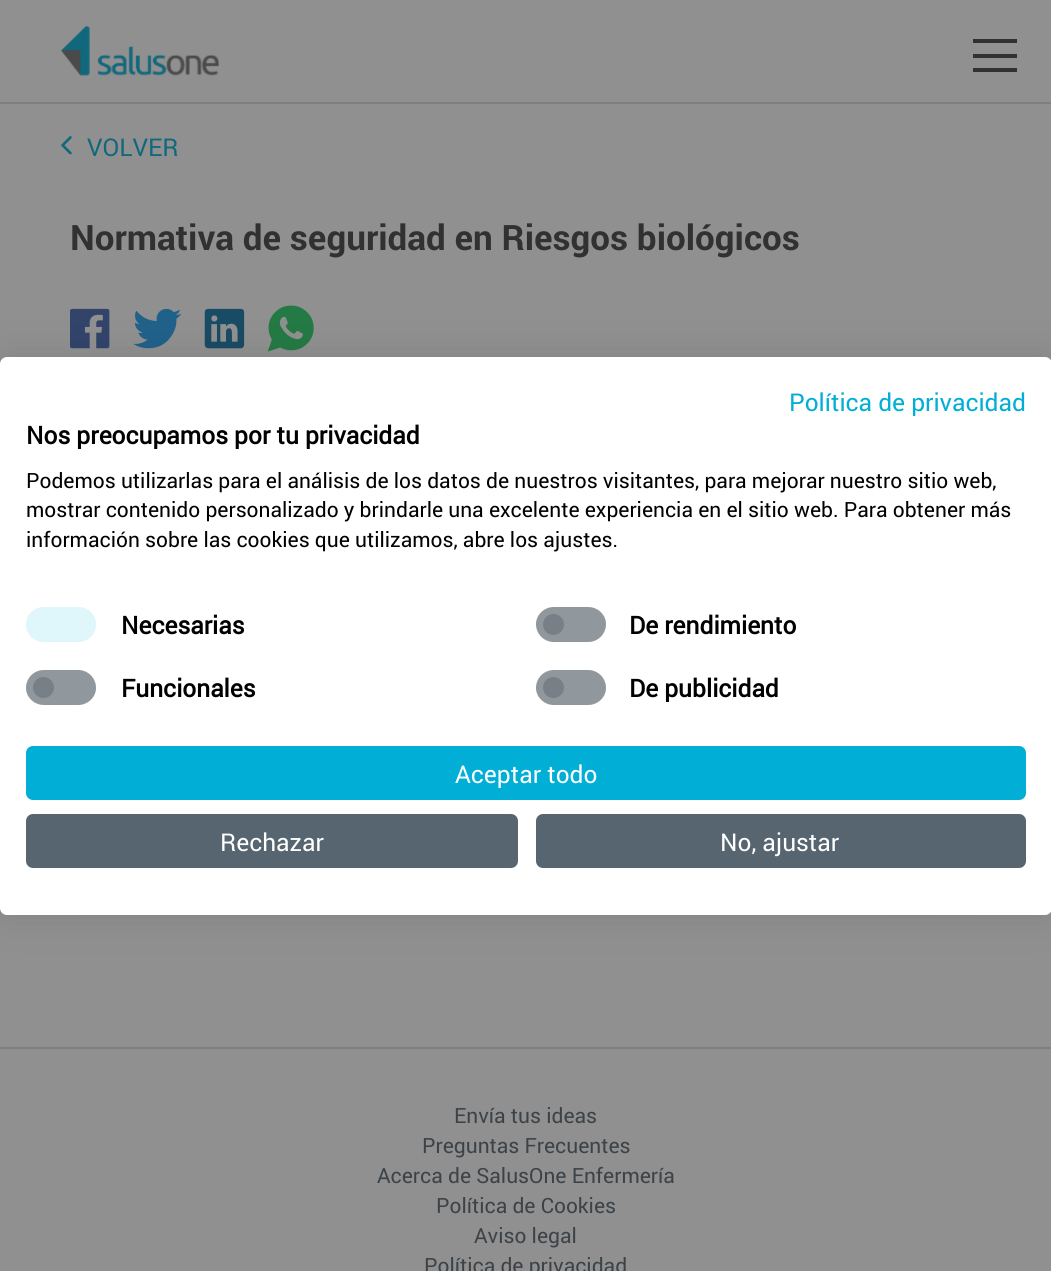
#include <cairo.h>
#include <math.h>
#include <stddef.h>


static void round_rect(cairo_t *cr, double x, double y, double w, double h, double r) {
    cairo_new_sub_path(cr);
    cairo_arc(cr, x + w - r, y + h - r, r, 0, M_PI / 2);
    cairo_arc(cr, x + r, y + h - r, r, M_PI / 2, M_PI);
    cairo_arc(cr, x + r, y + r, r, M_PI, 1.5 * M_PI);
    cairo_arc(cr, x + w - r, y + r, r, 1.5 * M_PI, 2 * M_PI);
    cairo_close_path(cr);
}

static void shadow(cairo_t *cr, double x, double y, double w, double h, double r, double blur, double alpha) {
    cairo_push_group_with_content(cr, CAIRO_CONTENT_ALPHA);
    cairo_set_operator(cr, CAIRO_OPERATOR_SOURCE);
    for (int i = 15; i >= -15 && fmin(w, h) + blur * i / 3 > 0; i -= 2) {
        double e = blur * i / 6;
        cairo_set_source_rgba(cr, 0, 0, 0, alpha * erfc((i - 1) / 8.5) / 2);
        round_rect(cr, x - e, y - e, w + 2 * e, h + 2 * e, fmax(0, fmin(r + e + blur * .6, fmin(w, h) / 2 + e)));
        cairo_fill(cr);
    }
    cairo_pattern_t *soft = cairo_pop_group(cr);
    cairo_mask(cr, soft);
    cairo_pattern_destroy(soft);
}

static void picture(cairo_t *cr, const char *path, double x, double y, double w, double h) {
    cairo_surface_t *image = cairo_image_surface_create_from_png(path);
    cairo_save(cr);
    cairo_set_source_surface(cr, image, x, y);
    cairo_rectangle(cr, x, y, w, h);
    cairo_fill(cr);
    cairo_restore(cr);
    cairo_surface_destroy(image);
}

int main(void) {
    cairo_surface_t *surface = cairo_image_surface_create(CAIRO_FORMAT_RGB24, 1051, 1271);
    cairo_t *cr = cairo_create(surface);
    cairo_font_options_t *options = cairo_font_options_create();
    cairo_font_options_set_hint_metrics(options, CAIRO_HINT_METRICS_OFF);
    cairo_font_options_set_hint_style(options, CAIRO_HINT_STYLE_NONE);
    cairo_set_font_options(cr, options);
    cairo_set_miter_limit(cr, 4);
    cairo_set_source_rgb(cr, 0.569, 0.565, 0.565);
    cairo_paint(cr);
    cairo_set_source_rgb(cr, 0.502, 0.498, 0.498);
    cairo_rectangle(cr, 0, 102, 1051, 2);
    cairo_fill(cr);
    picture(cr, "img1.png", 61, 26, 158, 50);
    cairo_set_source_rgb(cr, 0.196, 0.192, 0.192);
    cairo_rectangle(cr, 973, 54, 44, 4);
    cairo_fill(cr);
    cairo_rectangle(cr, 973, 39, 44, 4);
    cairo_fill(cr);
    cairo_rectangle(cr, 973, 68, 44, 4);
    cairo_fill(cr);
    picture(cr, "img2.png", 61, 136, 11, 19);
    cairo_select_font_face(cr, "roboto", CAIRO_FONT_SLANT_NORMAL, CAIRO_FONT_WEIGHT_NORMAL);
    cairo_set_font_size(cr, 24.5);
    cairo_set_source_rgb(cr, 0.067, 0.408, 0.486);
    cairo_move_to(cr, 87, 156);
    cairo_show_text(cr, "VOLVER");
    cairo_select_font_face(cr, "roboto", CAIRO_FONT_SLANT_NORMAL, CAIRO_FONT_WEIGHT_BOLD);
    cairo_set_font_size(cr, 35);
    cairo_set_source_rgb(cr, 0.196, 0.192, 0.192);
    cairo_move_to(cr, 70, 250);
    cairo_show_text(cr, "Normativa de seguridad en Riesgos biológicos");
    picture(cr, "img3.png", 70, 308, 40, 41);
    picture(cr, "img4.png", 133, 308, 49, 41);
    picture(cr, "img5.png", 204, 308, 41, 41);
    picture(cr, "img6.png", 267, 305, 47, 47);
    picture(cr, "img7.png", 70, 915, 912, 1);
    cairo_set_source_rgb(cr, 0, 0, 0);
    shadow(cr, 0, 357, 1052, 558, 7, 21, 0.1);
    cairo_set_source_rgb(cr, 1, 1, 1);
    round_rect(cr, 0, 357, 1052, 558, 7);
    cairo_fill(cr);
    cairo_select_font_face(cr, "roboto", CAIRO_FONT_SLANT_NORMAL, CAIRO_FONT_WEIGHT_NORMAL);
    cairo_set_font_size(cr, 24.5);
    cairo_set_source_rgb(cr, 0, 0.682, 0.839);
    cairo_move_to(cr, 789, 411);
    cairo_show_text(cr, "Política de privacidad");
    cairo_select_font_face(cr, "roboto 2", CAIRO_FONT_SLANT_NORMAL, CAIRO_FONT_WEIGHT_BOLD);
    cairo_set_source_rgb(cr, 0, 0, 0);
    cairo_move_to(cr, 26, 444);
    cairo_show_text(cr, "Nos preocupamos por tu privacidad");
    cairo_select_font_face(cr, "roboto", CAIRO_FONT_SLANT_NORMAL, CAIRO_FONT_WEIGHT_NORMAL);
    cairo_set_font_size(cr, 21);
    cairo_move_to(cr, 26, 488);
    cairo_show_text(cr, "Podemos utilizarlas para el análisis de los datos de nuestros visitantes, para mejorar nuestro sitio web,");
    cairo_move_to(cr, 26, 517);
    cairo_show_text(cr, "mostrar contenido personalizado y brindarle una excelente experiencia en el sitio web. Para obtener más");
    cairo_move_to(cr, 26, 547);
    cairo_show_text(cr, "información sobre las cookies que utilizamos, abre los ajustes.");
    cairo_set_source_rgb(cr, 0.949, 0.984, 0.992);
    round_rect(cr, 26, 607, 70, 35, 17.5);
    cairo_fill(cr);
    cairo_set_source_rgb(cr, 0.875, 0.961, 0.98);
    cairo_new_path(cr);
    cairo_move_to(cr, 44, 607);
    cairo_line_to(cr, 78, 607);
    cairo_curve_to(cr, 88, 607, 96, 615, 96, 624);
    cairo_curve_to(cr, 96, 634, 88, 642, 78, 642);
    cairo_line_to(cr, 44, 642);
    cairo_curve_to(cr, 34, 642, 26, 634, 26, 624);
    cairo_curve_to(cr, 26, 615, 34, 607, 44, 607);
    cairo_close_path(cr);
    cairo_fill(cr);
    cairo_select_font_face(cr, "roboto 2", CAIRO_FONT_SLANT_NORMAL, CAIRO_FONT_WEIGHT_BOLD);
    cairo_set_font_size(cr, 24.5);
    cairo_set_source_rgb(cr, 0, 0, 0);
    cairo_move_to(cr, 121, 634);
    cairo_show_text(cr, "Necesarias");
    cairo_set_source_rgb(cr, 0.914, 0.925, 0.937);
    round_rect(cr, 536, 607, 70, 35, 17.5);
    cairo_fill(cr);
    cairo_set_source_rgb(cr, 0.573, 0.6, 0.624);
    cairo_arc(cr, 553.5, 624.5, 10.5, 0, 2 * M_PI);
    cairo_fill(cr);
    cairo_set_source_rgba(cr, 0.424, 0.459, 0.49, 0.7);
    cairo_new_path(cr);
    cairo_move_to(cr, 554, 607);
    cairo_line_to(cr, 588, 607);
    cairo_curve_to(cr, 598, 607, 606, 615, 606, 624);
    cairo_curve_to(cr, 606, 634, 598, 642, 588, 642);
    cairo_line_to(cr, 554, 642);
    cairo_curve_to(cr, 544, 642, 536, 634, 536, 624);
    cairo_curve_to(cr, 536, 615, 544, 607, 554, 607);
    cairo_close_path(cr);
    cairo_fill(cr);
    cairo_set_source_rgb(cr, 0, 0, 0);
    cairo_move_to(cr, 629, 634);
    cairo_show_text(cr, "De rendimiento");
    cairo_set_source_rgb(cr, 0.914, 0.925, 0.937);
    round_rect(cr, 26, 670, 70, 35, 17.5);
    cairo_fill(cr);
    cairo_set_source_rgb(cr, 0.573, 0.6, 0.624);
    cairo_arc(cr, 43.5, 687.5, 10.5, 0, 2 * M_PI);
    cairo_fill(cr);
    cairo_set_source_rgba(cr, 0.424, 0.459, 0.49, 0.7);
    cairo_new_path(cr);
    cairo_move_to(cr, 44, 670);
    cairo_line_to(cr, 78, 670);
    cairo_curve_to(cr, 88, 670, 96, 678, 96, 688);
    cairo_curve_to(cr, 96, 697, 88, 705, 78, 705);
    cairo_line_to(cr, 44, 705);
    cairo_curve_to(cr, 34, 705, 26, 697, 26, 688);
    cairo_curve_to(cr, 26, 678, 34, 670, 44, 670);
    cairo_close_path(cr);
    cairo_fill(cr);
    cairo_set_source_rgb(cr, 0, 0, 0);
    cairo_move_to(cr, 121, 697);
    cairo_show_text(cr, "Funcionales");
    cairo_set_source_rgb(cr, 0.914, 0.925, 0.937);
    round_rect(cr, 536, 670, 70, 35, 17.5);
    cairo_fill(cr);
    cairo_set_source_rgb(cr, 0.573, 0.6, 0.624);
    cairo_arc(cr, 553.5, 687.5, 10.5, 0, 2 * M_PI);
    cairo_fill(cr);
    cairo_set_source_rgba(cr, 0.424, 0.459, 0.49, 0.7);
    cairo_new_path(cr);
    cairo_move_to(cr, 554, 670);
    cairo_line_to(cr, 588, 670);
    cairo_curve_to(cr, 598, 670, 606, 678, 606, 688);
    cairo_curve_to(cr, 606, 697, 598, 705, 588, 705);
    cairo_line_to(cr, 554, 705);
    cairo_curve_to(cr, 544, 705, 536, 697, 536, 688);
    cairo_curve_to(cr, 536, 678, 544, 670, 554, 670);
    cairo_close_path(cr);
    cairo_fill(cr);
    cairo_set_source_rgb(cr, 0, 0, 0);
    cairo_move_to(cr, 629, 697);
    cairo_show_text(cr, "De publicidad");
    cairo_set_source_rgb(cr, 0, 0.682, 0.839);
    round_rect(cr, 27, 747, 998, 52, 6);
    cairo_fill_preserve(cr);
    cairo_stroke(cr);
    cairo_select_font_face(cr, "roboto", CAIRO_FONT_SLANT_NORMAL, CAIRO_FONT_WEIGHT_NORMAL);
    cairo_set_source_rgb(cr, 1, 1, 1);
    cairo_move_to(cr, 455, 783);
    cairo_show_text(cr, "Aceptar todo");
    cairo_set_source_rgb(cr, 0.337, 0.396, 0.435);
    round_rect(cr, 27, 815, 490, 52, 6);
    cairo_fill_preserve(cr);
    cairo_stroke(cr);
    cairo_set_source_rgb(cr, 1, 1, 1);
    cairo_move_to(cr, 220, 851);
    cairo_show_text(cr, "Rechazar");
    cairo_set_source_rgb(cr, 0.337, 0.396, 0.435);
    round_rect(cr, 537, 815, 488, 52, 6);
    cairo_fill_preserve(cr);
    cairo_stroke(cr);
    cairo_set_source_rgb(cr, 1, 1, 1);
    cairo_move_to(cr, 720, 851);
    cairo_show_text(cr, "No, ajustar");
    cairo_set_source_rgb(cr, 0.502, 0.498, 0.498);
    cairo_rectangle(cr, 0, 1047, 1051, 2);
    cairo_fill(cr);
    cairo_set_font_size(cr, 21);
    cairo_set_source_rgb(cr, 0.235, 0.263, 0.282);
    cairo_move_to(cr, 454, 1123);
    cairo_show_text(cr, "Envía tus ideas");
    cairo_move_to(cr, 422, 1153);
    cairo_show_text(cr, "Preguntas Frecuentes");
    cairo_move_to(cr, 377, 1183);
    cairo_show_text(cr, "Acerca de SalusOne Enfermería");
    cairo_move_to(cr, 436, 1213);
    cairo_show_text(cr, "Política de Cookies");
    cairo_move_to(cr, 474, 1243);
    cairo_show_text(cr, "Aviso legal");
    cairo_move_to(cr, 424, 1273);
    cairo_show_text(cr, "Política de privacidad");
    cairo_surface_write_to_png(surface, "page.png");
    cairo_font_options_destroy(options);
    cairo_destroy(cr);
    cairo_surface_destroy(surface);
    return 0;
}
